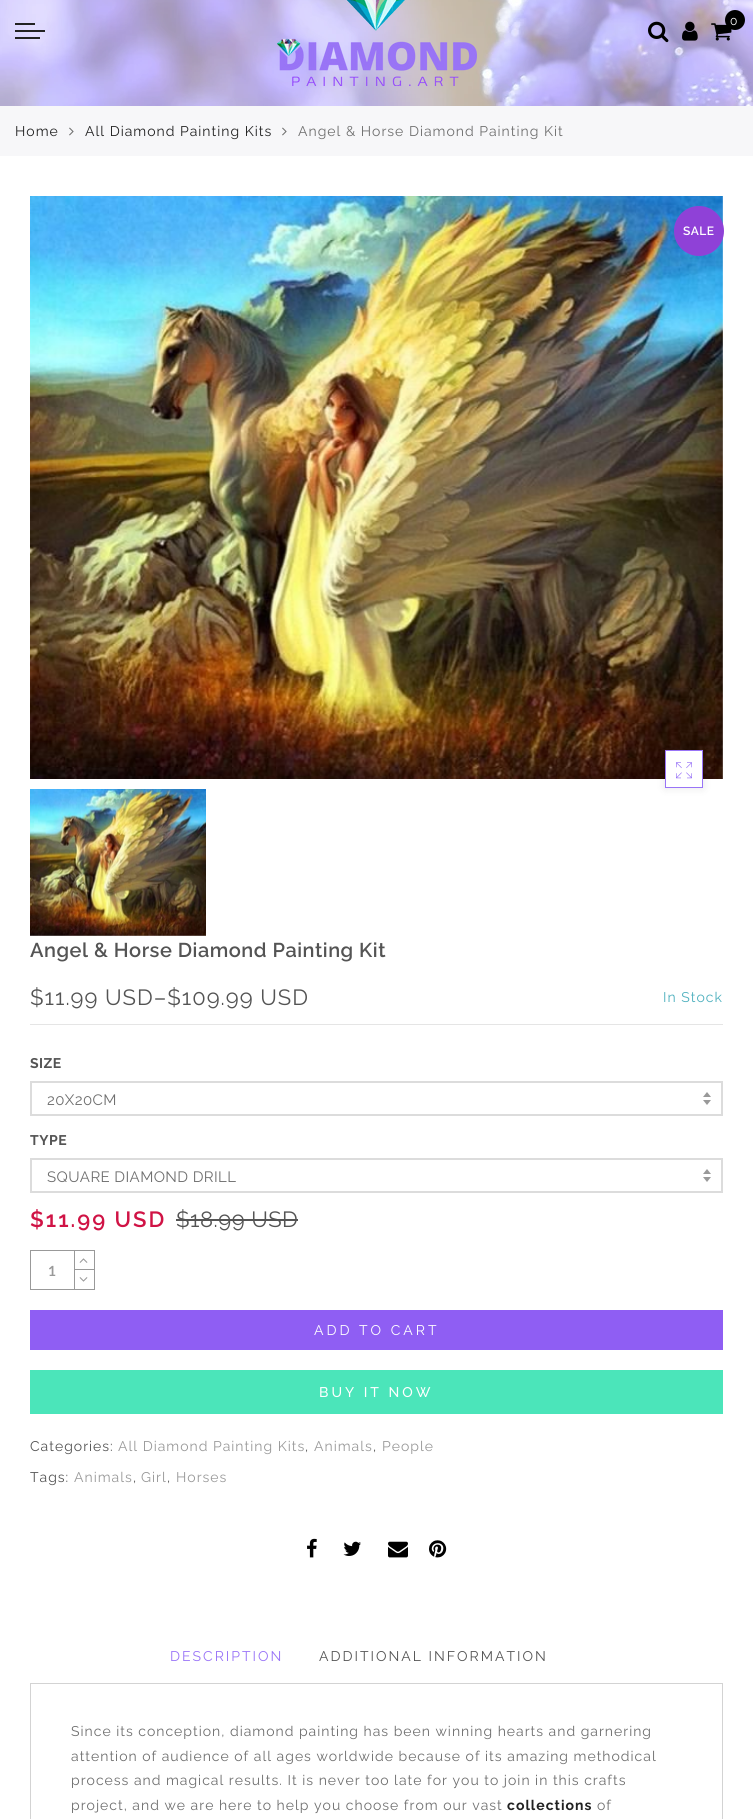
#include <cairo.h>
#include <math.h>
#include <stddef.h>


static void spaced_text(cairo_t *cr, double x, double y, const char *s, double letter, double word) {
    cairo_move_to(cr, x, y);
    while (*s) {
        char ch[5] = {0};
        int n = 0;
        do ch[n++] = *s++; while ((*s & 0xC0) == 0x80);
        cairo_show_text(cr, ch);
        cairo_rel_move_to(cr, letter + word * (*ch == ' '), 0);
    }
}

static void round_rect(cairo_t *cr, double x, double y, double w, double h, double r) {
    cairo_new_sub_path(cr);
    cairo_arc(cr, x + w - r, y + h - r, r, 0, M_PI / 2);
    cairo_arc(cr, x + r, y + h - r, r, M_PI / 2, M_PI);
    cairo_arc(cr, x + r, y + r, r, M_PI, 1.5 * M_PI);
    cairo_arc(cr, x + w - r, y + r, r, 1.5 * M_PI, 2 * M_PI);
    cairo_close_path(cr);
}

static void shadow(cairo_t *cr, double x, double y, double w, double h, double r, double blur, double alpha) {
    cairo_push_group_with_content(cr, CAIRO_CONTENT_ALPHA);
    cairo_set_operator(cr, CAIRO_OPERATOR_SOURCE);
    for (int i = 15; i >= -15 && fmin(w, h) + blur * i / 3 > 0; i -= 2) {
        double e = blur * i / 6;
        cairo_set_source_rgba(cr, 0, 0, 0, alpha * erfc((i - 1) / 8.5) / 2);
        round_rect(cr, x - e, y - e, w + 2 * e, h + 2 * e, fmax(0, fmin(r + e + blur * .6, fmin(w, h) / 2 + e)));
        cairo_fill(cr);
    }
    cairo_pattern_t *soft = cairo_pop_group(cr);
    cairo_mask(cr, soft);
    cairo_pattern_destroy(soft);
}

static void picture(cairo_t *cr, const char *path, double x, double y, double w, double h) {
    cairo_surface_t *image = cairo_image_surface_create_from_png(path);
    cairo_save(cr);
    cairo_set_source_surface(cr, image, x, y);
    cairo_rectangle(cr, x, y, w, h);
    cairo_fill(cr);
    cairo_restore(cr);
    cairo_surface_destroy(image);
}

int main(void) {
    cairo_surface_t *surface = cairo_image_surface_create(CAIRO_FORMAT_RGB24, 753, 1819);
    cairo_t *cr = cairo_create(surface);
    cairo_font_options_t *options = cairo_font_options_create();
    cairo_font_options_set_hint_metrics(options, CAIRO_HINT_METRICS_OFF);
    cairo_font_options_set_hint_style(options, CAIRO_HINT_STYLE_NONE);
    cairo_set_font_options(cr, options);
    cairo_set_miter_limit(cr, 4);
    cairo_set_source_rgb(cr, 1, 1, 1);
    cairo_paint(cr);
    picture(cr, "img1.png", 0, 0, 753, 106);
    picture(cr, "img2.png", 277, 0, 200, 86);
    picture(cr, "img3.png", 648, 21, 21, 22);
    picture(cr, "img4.png", 682, 21, 16, 20);
    picture(cr, "img5.png", 711, 23, 21, 18);
    cairo_set_source_rgb(cr, 0, 0, 0);
    cairo_arc(cr, 735, 20, 10, 0, 2 * M_PI);
    cairo_fill(cr);
    cairo_select_font_face(cr, "Raleway", CAIRO_FONT_SLANT_NORMAL, CAIRO_FONT_WEIGHT_NORMAL);
    cairo_set_font_size(cr, 12);
    cairo_set_source_rgb(cr, 1, 1, 1);
    spaced_text(cr, 730, 25, "0", 1, 0);
    cairo_set_source_rgb(cr, 0.133, 0.133, 0.133);
    cairo_rectangle(cr, 15, 23, 20, 2);
    cairo_fill(cr);
    cairo_rectangle(cr, 15, 30, 30, 2);
    cairo_fill(cr);
    cairo_rectangle(cr, 15, 37, 25, 2);
    cairo_fill(cr);
    cairo_set_source_rgb(cr, 0.965, 0.965, 0.973);
    cairo_rectangle(cr, 0, 106, 753, 50);
    cairo_fill(cr);
    cairo_set_font_size(cr, 14);
    cairo_set_source_rgb(cr, 0.133, 0.133, 0.133);
    spaced_text(cr, 15, 136, "Home", 1, 0);
    picture(cr, "img6.png", 69, 127, 5, 9);
    spaced_text(cr, 85, 136, "All Diamond Painting Kits", 1, 0);
    picture(cr, "img6.png", 282, 127, 5, 9);
    cairo_set_source_rgb(cr, 0.435, 0.435, 0.435);
    spaced_text(cr, 298, 136, "Angel & Horse Diamond Painting Kit", 1, 0);
    picture(cr, "img7.png", 30, 196, 693, 583);
    cairo_set_source_rgb(cr, 0, 0, 0);
    shadow(cr, 665, 750, 38, 38, 0, 4.5, 0.1);
    cairo_set_source_rgb(cr, 1, 1, 1);
    cairo_rectangle(cr, 665.5, 750.5, 37, 37);
    cairo_fill_preserve(cr);
    cairo_set_source_rgb(cr, 0.6, 0.455, 0.965);
    cairo_set_line_width(cr, 1);
    cairo_stroke(cr);
    picture(cr, "img8.png", 676, 762, 16, 17);
    picture(cr, "img9.png", 30, 789, 176, 147);
    cairo_set_source_rgb(cr, 0.561, 0.255, 0.843);
    cairo_arc(cr, 699, 231, 25, 0, 2 * M_PI);
    cairo_fill(cr);
    cairo_select_font_face(cr, "Raleway SemiBold", CAIRO_FONT_SLANT_NORMAL, CAIRO_FONT_WEIGHT_NORMAL);
    cairo_set_font_size(cr, 12);
    cairo_set_source_rgb(cr, 1, 1, 1);
    spaced_text(cr, 683, 235, "SALE", 0.4, 0);
    cairo_set_font_size(cr, 20);
    cairo_set_source_rgb(cr, 0.329, 0.329, 0.329);
    spaced_text(cr, 30, 957, "Angel & Horse Diamond Painting Kit", 0.5, 0);
    cairo_set_source_rgb(cr, 0.898, 0.898, 0.898);
    cairo_rectangle(cr, 30, 1024, 693, 1);
    cairo_fill(cr);
    cairo_select_font_face(cr, "Raleway", CAIRO_FONT_SLANT_NORMAL, CAIRO_FONT_WEIGHT_NORMAL);
    cairo_set_font_size(cr, 22);
    cairo_set_source_rgb(cr, 0.329, 0.329, 0.329);
    spaced_text(cr, 30, 1005, "$11.99 USD–$109.99 USD", 1, 0);
    cairo_set_font_size(cr, 14);
    cairo_set_source_rgb(cr, 0.306, 0.69, 0.745);
    spaced_text(cr, 663, 1002, "In Stock", 1, 0);
    cairo_select_font_face(cr, "Raleway", CAIRO_FONT_SLANT_NORMAL, CAIRO_FONT_WEIGHT_BOLD);
    cairo_set_source_rgb(cr, 0.329, 0.329, 0.329);
    spaced_text(cr, 30, 1068, "SIZE", 0.5, 0);
    picture(cr, "img10.png", 703, 1092, 8, 13);
    cairo_rectangle(cr, 31, 1082, 691, 33);
    cairo_set_source_rgb(cr, 0.863, 0.863, 0.863);
    cairo_set_line_width(cr, 2);
    cairo_stroke(cr);
    cairo_select_font_face(cr, "Raleway", CAIRO_FONT_SLANT_NORMAL, CAIRO_FONT_WEIGHT_NORMAL);
    cairo_set_font_size(cr, 15);
    cairo_set_source_rgb(cr, 0.435, 0.435, 0.435);
    spaced_text(cr, 47, 1105, "20X20CM", 0.4, 0);
    cairo_select_font_face(cr, "Raleway", CAIRO_FONT_SLANT_NORMAL, CAIRO_FONT_WEIGHT_BOLD);
    cairo_set_font_size(cr, 14);
    cairo_set_source_rgb(cr, 0.329, 0.329, 0.329);
    spaced_text(cr, 30, 1145, "TYPE", 0.5, 0);
    picture(cr, "img10.png", 703, 1169, 8, 13);
    cairo_rectangle(cr, 31, 1159, 691, 33);
    cairo_set_source_rgb(cr, 0.863, 0.863, 0.863);
    cairo_stroke(cr);
    cairo_select_font_face(cr, "Raleway", CAIRO_FONT_SLANT_NORMAL, CAIRO_FONT_WEIGHT_NORMAL);
    cairo_set_font_size(cr, 15);
    cairo_set_source_rgb(cr, 0.435, 0.435, 0.435);
    spaced_text(cr, 47, 1182, "SQUARE DIAMOND DRILL", 0.4, 0);
    cairo_select_font_face(cr, "Raleway SemiBold", CAIRO_FONT_SLANT_NORMAL, CAIRO_FONT_WEIGHT_NORMAL);
    cairo_set_font_size(cr, 22);
    cairo_set_source_rgb(cr, 0.816, 0.075, 0.271);
    spaced_text(cr, 30, 1227, "$11.99 USD", 2, 0);
    cairo_select_font_face(cr, "Raleway", CAIRO_FONT_SLANT_NORMAL, CAIRO_FONT_WEIGHT_NORMAL);
    cairo_set_source_rgb(cr, 0.329, 0.329, 0.329);
    spaced_text(cr, 176, 1227, "$18.99 USD", 0.5, 0);
    cairo_rectangle(cr, 176, 1219, 122, 2);
    cairo_fill(cr);
    cairo_rectangle(cr, 30.5, 1250.5, 64, 39);
    cairo_set_source_rgb(cr, 0.6, 0.6, 0.6);
    cairo_set_line_width(cr, 1);
    cairo_stroke(cr);
    cairo_rectangle(cr, 74, 1251, 1, 39);
    cairo_fill(cr);
    cairo_select_font_face(cr, "Lato", CAIRO_FONT_SLANT_NORMAL, CAIRO_FONT_WEIGHT_BOLD);
    cairo_set_font_size(cr, 14);
    spaced_text(cr, 48, 1276, "1", 1, 0);
    cairo_rectangle(cr, 74, 1269, 20, 1);
    cairo_fill(cr);
    picture(cr, "img11.png", 79, 1258, 9, 5);
    picture(cr, "img12.png", 79, 1277, 9, 5);
    cairo_set_source_rgb(cr, 0.561, 0.369, 0.953);
    cairo_rectangle(cr, 30, 1310, 693, 40);
    cairo_fill(cr);
    cairo_select_font_face(cr, "Raleway", CAIRO_FONT_SLANT_NORMAL, CAIRO_FONT_WEIGHT_NORMAL);
    cairo_set_source_rgb(cr, 1, 1, 1);
    spaced_text(cr, 314, 1335, "ADD TO CART", 3, 0);
    cairo_set_source_rgb(cr, 0.294, 0.898, 0.729);
    cairo_rectangle(cr, 30, 1370, 693, 44);
    cairo_fill(cr);
    cairo_select_font_face(cr, "Raleway Medium", CAIRO_FONT_SLANT_NORMAL, CAIRO_FONT_WEIGHT_NORMAL);
    cairo_set_source_rgb(cr, 1, 1, 1);
    spaced_text(cr, 319, 1397, "BUY IT NOW", 3, 0);
    cairo_select_font_face(cr, "Raleway", CAIRO_FONT_SLANT_NORMAL, CAIRO_FONT_WEIGHT_NORMAL);
    cairo_set_source_rgb(cr, 0.329, 0.329, 0.329);
    spaced_text(cr, 30, 1451, "Categories:", 1, 0);
    cairo_set_source_rgb(cr, 0.6, 0.6, 0.6);
    spaced_text(cr, 118, 1451, "All Diamond Painting Kits", 1, 0);
    cairo_set_source_rgb(cr, 0.329, 0.329, 0.329);
    spaced_text(cr, 305, 1451, ",", 1, 0);
    cairo_set_source_rgb(cr, 0.6, 0.6, 0.6);
    spaced_text(cr, 314, 1451, "Animals", 1, 0);
    cairo_set_source_rgb(cr, 0.329, 0.329, 0.329);
    spaced_text(cr, 373, 1451, ",", 1, 0);
    cairo_set_source_rgb(cr, 0.6, 0.6, 0.6);
    spaced_text(cr, 382, 1451, "People", 1, 0);
    cairo_set_source_rgb(cr, 0.329, 0.329, 0.329);
    spaced_text(cr, 30, 1482, "Tags:", 1, 0);
    cairo_set_source_rgb(cr, 0.6, 0.6, 0.6);
    spaced_text(cr, 74, 1482, "Animals", 1, 0);
    cairo_set_source_rgb(cr, 0.329, 0.329, 0.329);
    spaced_text(cr, 133, 1482, ",", 1, 0);
    cairo_set_source_rgb(cr, 0.6, 0.6, 0.6);
    spaced_text(cr, 141, 1482, "Girl", 1, 0);
    cairo_set_source_rgb(cr, 0.329, 0.329, 0.329);
    spaced_text(cr, 167, 1482, ",", 1, 0);
    cairo_set_source_rgb(cr, 0.6, 0.6, 0.6);
    spaced_text(cr, 176, 1482, "Horses", 1, 0);
    picture(cr, "img13.png", 307, 1538, 10, 20);
    picture(cr, "img14.png", 343, 1541, 18, 15);
    picture(cr, "img15.png", 388, 1541, 20, 17);
    picture(cr, "img16.png", 429, 1540, 18, 18);
    cairo_set_source_rgb(cr, 0.6, 0.455, 0.965);
    spaced_text(cr, 170, 1661, "DESCRIPTION", 2, 0);
    cairo_set_source_rgb(cr, 0.329, 0.329, 0.329);
    spaced_text(cr, 319, 1661, "ADDITIONAL INFORMATION", 2, 0);
    cairo_rectangle(cr, 30.5, 1683.5, 692, 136);
    cairo_set_source_rgb(cr, 0.827, 0.827, 0.827);
    cairo_stroke(cr);
    cairo_set_source_rgb(cr, 0.435, 0.435, 0.435);
    spaced_text(cr, 71, 1736, "Since its conception, diamond painting has been winning hearts and garnering", 1, 0);
    spaced_text(cr, 71, 1761, "attention of audience of all ages worldwide because of its amazing methodical", 1, 0);
    spaced_text(cr, 71, 1785, "process and magical results. It is never too late for you to join in this crafts", 1, 0);
    spaced_text(cr, 71, 1810, "project, and we are here to help you choose from our vast", 1, 0);
    cairo_select_font_face(cr, "Raleway", CAIRO_FONT_SLANT_NORMAL, CAIRO_FONT_WEIGHT_BOLD);
    cairo_set_source_rgb(cr, 0.133, 0.133, 0.133);
    spaced_text(cr, 507, 1810, "collections", 1, 0);
    cairo_select_font_face(cr, "Raleway", CAIRO_FONT_SLANT_NORMAL, CAIRO_FONT_WEIGHT_NORMAL);
    cairo_set_source_rgb(cr, 0.435, 0.435, 0.435);
    spaced_text(cr, 597, 1810, "of", 1, 0);
    cairo_surface_write_to_png(surface, "page.png");
    cairo_font_options_destroy(options);
    cairo_destroy(cr);
    cairo_surface_destroy(surface);
    return 0;
}
